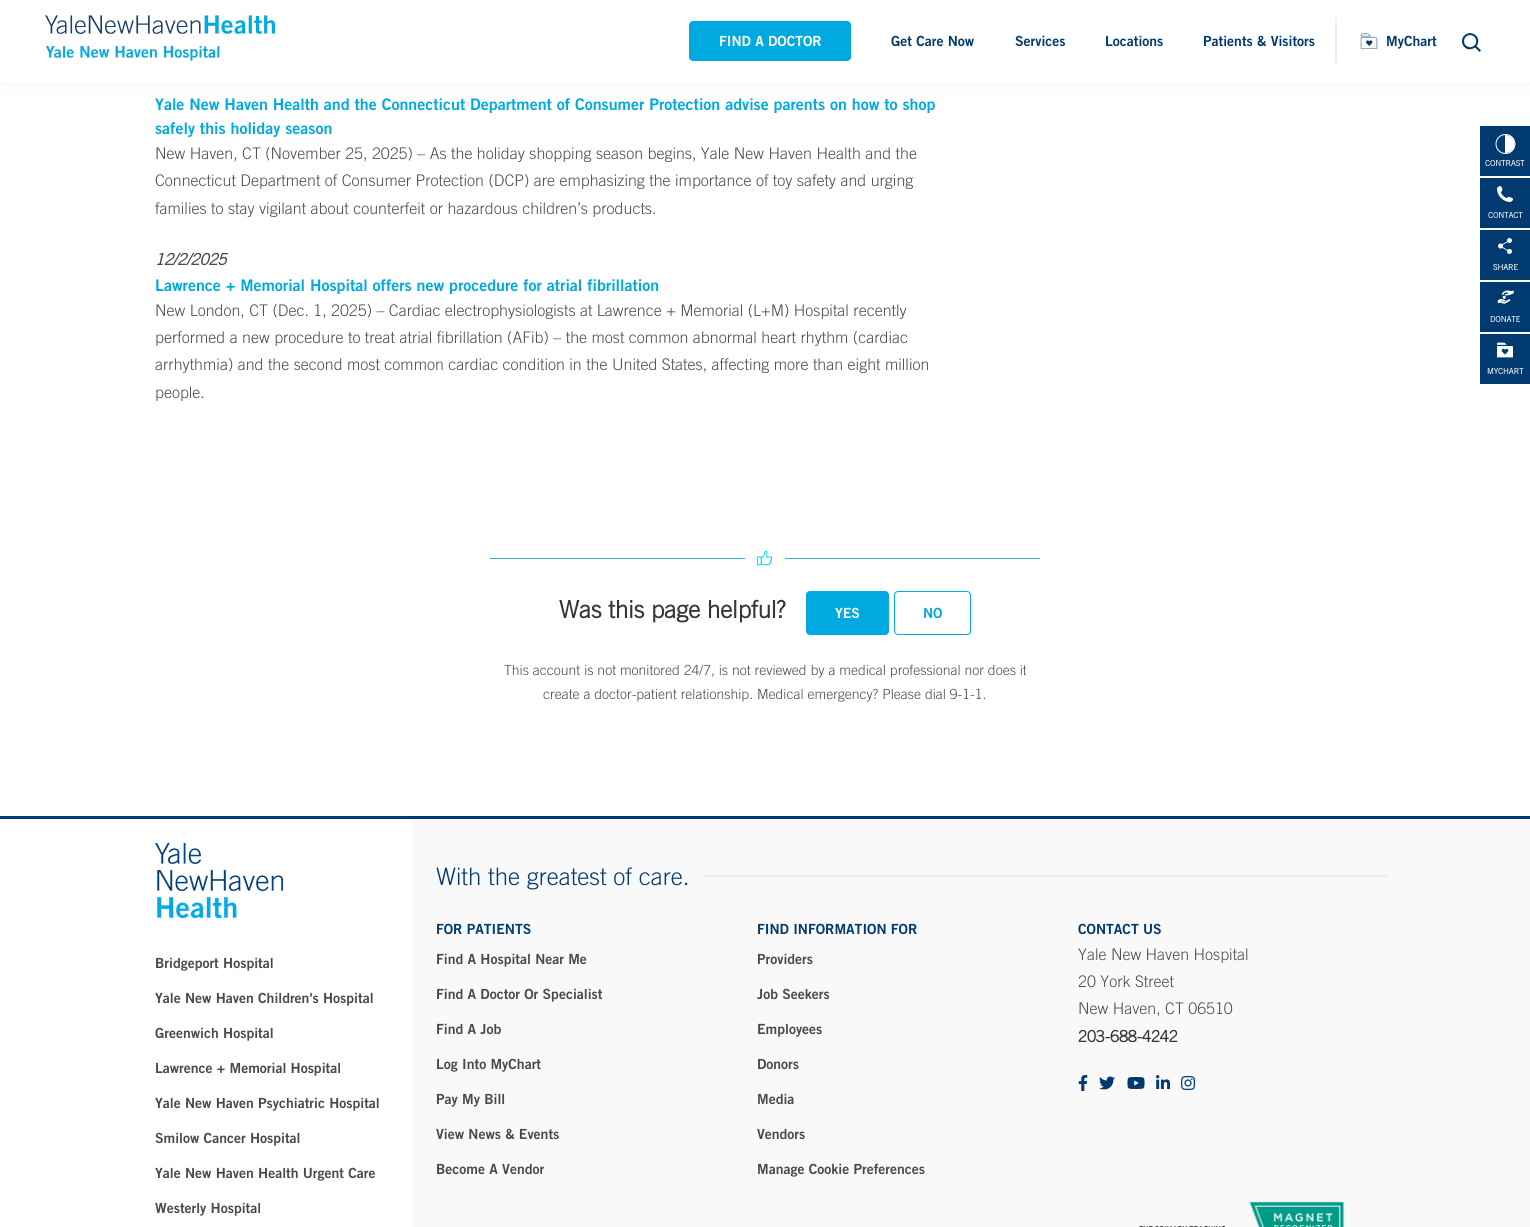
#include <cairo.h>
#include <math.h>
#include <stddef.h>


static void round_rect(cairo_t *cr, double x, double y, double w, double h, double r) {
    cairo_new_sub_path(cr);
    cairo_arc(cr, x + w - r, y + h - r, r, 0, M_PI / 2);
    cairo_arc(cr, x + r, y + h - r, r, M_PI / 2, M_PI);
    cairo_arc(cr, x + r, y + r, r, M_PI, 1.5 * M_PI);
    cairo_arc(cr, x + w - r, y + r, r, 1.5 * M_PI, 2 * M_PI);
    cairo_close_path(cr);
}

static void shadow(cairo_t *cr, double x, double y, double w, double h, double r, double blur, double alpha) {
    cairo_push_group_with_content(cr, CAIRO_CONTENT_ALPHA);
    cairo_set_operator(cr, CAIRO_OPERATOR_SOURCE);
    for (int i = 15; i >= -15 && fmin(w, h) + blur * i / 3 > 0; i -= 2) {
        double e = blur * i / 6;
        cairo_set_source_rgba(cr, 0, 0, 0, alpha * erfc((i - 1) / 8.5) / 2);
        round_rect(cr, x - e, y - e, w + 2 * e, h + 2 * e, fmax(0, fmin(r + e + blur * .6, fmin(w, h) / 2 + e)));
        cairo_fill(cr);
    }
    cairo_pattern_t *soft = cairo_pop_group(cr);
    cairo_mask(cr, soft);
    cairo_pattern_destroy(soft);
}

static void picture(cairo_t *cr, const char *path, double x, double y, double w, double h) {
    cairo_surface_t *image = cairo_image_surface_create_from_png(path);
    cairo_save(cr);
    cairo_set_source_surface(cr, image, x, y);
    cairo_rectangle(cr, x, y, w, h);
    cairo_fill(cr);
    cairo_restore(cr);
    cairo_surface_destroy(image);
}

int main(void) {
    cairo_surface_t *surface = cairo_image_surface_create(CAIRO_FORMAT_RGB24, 1530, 1227);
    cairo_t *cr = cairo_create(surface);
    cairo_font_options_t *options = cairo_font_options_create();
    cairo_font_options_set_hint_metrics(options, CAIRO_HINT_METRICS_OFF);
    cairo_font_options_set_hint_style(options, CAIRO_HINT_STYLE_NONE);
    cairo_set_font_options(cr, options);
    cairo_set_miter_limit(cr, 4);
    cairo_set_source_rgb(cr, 1, 1, 1);
    cairo_paint(cr);
    cairo_set_source_rgb(cr, 0.796, 0.796, 0.796);
    shadow(cr, 0, 1, 1530, 82, 0, 9, 0.2);
    cairo_set_source_rgb(cr, 1, 1, 1);
    cairo_rectangle(cr, 0, 0, 1530, 82);
    cairo_fill(cr);
    picture(cr, "img1.png", 45, 15, 230, 46);
    cairo_set_source_rgb(cr, 0, 0.663, 0.878);
    round_rect(cr, 689, 21, 162, 40, 4);
    cairo_fill(cr);
    cairo_select_font_face(cr, "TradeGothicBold", CAIRO_FONT_SLANT_NORMAL, CAIRO_FONT_WEIGHT_BOLD);
    cairo_set_font_size(cr, 14);
    cairo_set_source_rgb(cr, 1, 1, 1);
    cairo_move_to(cr, 719, 46);
    cairo_show_text(cr, "FIND A DOCTOR");
    cairo_set_source_rgb(cr, 0, 0.227, 0.439);
    cairo_move_to(cr, 891, 46);
    cairo_show_text(cr, "Get Care Now");
    cairo_move_to(cr, 1015, 46);
    cairo_show_text(cr, "Services");
    cairo_move_to(cr, 1105, 46);
    cairo_show_text(cr, "Locations");
    cairo_move_to(cr, 1203, 46);
    cairo_show_text(cr, "Patients & Visitors");
    cairo_set_source_rgb(cr, 0.929, 0.929, 0.929);
    cairo_rectangle(cr, 1335, 18, 2, 45);
    cairo_fill(cr);
    picture(cr, "img2.png", 1360, 33, 18, 16);
    cairo_set_source_rgb(cr, 0, 0.227, 0.439);
    cairo_move_to(cr, 1386, 46);
    cairo_show_text(cr, "MyChart");
    picture(cr, "img3.png", 1462, 33, 19, 19);
    cairo_set_font_size(cr, 16);
    cairo_set_source_rgb(cr, 0, 0.663, 0.878);
    cairo_move_to(cr, 155, 110);
    cairo_show_text(cr, "Yale New Haven Health and the Connecticut Department of Consumer Protection advise parents on how to shop");
    cairo_move_to(cr, 155, 134);
    cairo_show_text(cr, "safely this holiday season");
    cairo_select_font_face(cr, "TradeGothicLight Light", CAIRO_FONT_SLANT_NORMAL, CAIRO_FONT_WEIGHT_NORMAL);
    cairo_set_source_rgb(cr, 0.29, 0.29, 0.29);
    cairo_move_to(cr, 155, 159);
    cairo_show_text(cr, "New Haven, CT (November 25, 2025) – As the holiday shopping season begins, Yale New Haven Health and the");
    cairo_move_to(cr, 155, 186);
    cairo_show_text(cr, "Connecticut Department of Consumer Protection (DCP) are emphasizing the importance of toy safety and urging");
    cairo_move_to(cr, 155, 214);
    cairo_show_text(cr, "families to stay vigilant about counterfeit or hazardous children’s products.");
    cairo_select_font_face(cr, "TradeGothicLight", CAIRO_FONT_SLANT_ITALIC, CAIRO_FONT_WEIGHT_BOLD);
    cairo_move_to(cr, 155, 265);
    cairo_show_text(cr, "12/2/2025");
    cairo_select_font_face(cr, "TradeGothicBold", CAIRO_FONT_SLANT_NORMAL, CAIRO_FONT_WEIGHT_BOLD);
    cairo_set_source_rgb(cr, 0, 0.663, 0.878);
    cairo_move_to(cr, 155, 291);
    cairo_show_text(cr, "Lawrence + Memorial Hospital offers new procedure for atrial fibrillation");
    cairo_select_font_face(cr, "TradeGothicLight Light", CAIRO_FONT_SLANT_NORMAL, CAIRO_FONT_WEIGHT_NORMAL);
    cairo_set_source_rgb(cr, 0.29, 0.29, 0.29);
    cairo_move_to(cr, 155, 316);
    cairo_show_text(cr, "New London, CT (Dec. 1, 2025) – Cardiac electrophysiologists at Lawrence + Memorial (L+M) Hospital recently");
    cairo_move_to(cr, 155, 343);
    cairo_show_text(cr, "performed a new procedure to treat atrial fibrillation (AFib) – the most common abnormal heart rhythm (cardiac");
    cairo_move_to(cr, 155, 370);
    cairo_show_text(cr, "arrhythmia) and the second most common cardiac condition in the United States, affecting more than eight million");
    cairo_move_to(cr, 155, 398);
    cairo_show_text(cr, "people.");
    cairo_set_source_rgb(cr, 0.227, 0.671, 0.898);
    cairo_rectangle(cr, 490, 558, 550, 1);
    cairo_fill(cr);
    cairo_set_source_rgb(cr, 1, 1, 1);
    cairo_rectangle(cr, 745, 558, 40, 1);
    cairo_fill(cr);
    picture(cr, "img4.png", 756, 550, 17, 16);
    cairo_select_font_face(cr, "TradeGothicLight", CAIRO_FONT_SLANT_NORMAL, CAIRO_FONT_WEIGHT_BOLD);
    cairo_set_font_size(cr, 24);
    cairo_set_source_rgb(cr, 0.212, 0.212, 0.212);
    cairo_move_to(cr, 559, 618);
    cairo_show_text(cr, "Was this page helpful?");
    cairo_set_source_rgb(cr, 0, 0.663, 0.878);
    round_rect(cr, 806.5, 591.5, 82, 43, 3.5);
    cairo_fill_preserve(cr);
    cairo_set_line_width(cr, 1);
    cairo_stroke(cr);
    cairo_select_font_face(cr, "TradeGothicBold", CAIRO_FONT_SLANT_NORMAL, CAIRO_FONT_WEIGHT_BOLD);
    cairo_set_font_size(cr, 14);
    cairo_set_source_rgb(cr, 1, 1, 1);
    cairo_move_to(cr, 835, 618);
    cairo_show_text(cr, "YES");
    round_rect(cr, 894.5, 591.5, 76, 43, 3.5);
    cairo_set_source_rgb(cr, 0, 0.663, 0.878);
    cairo_stroke(cr);
    cairo_move_to(cr, 923, 618);
    cairo_show_text(cr, "NO");
    cairo_select_font_face(cr, "TradeGothicLight Light", CAIRO_FONT_SLANT_NORMAL, CAIRO_FONT_WEIGHT_NORMAL);
    cairo_set_source_rgb(cr, 0.29, 0.29, 0.29);
    cairo_move_to(cr, 504, 675);
    cairo_show_text(cr, "This account is not monitored 24/7, is not reviewed by a medical professional nor does it");
    cairo_move_to(cr, 543, 699);
    cairo_show_text(cr, "create a doctor-patient relationship. Medical emergency? Please dial 9-1-1.");
    cairo_set_source_rgb(cr, 0, 0.227, 0.439);
    cairo_rectangle(cr, 1480, 126, 50, 50);
    cairo_fill(cr);
    cairo_arc(cr, 1505.5, 144, 9.5, 0, 2 * M_PI);
    cairo_set_source_rgb(cr, 1, 1, 1);
    cairo_stroke(cr);
    cairo_set_fill_rule(cr, CAIRO_FILL_RULE_EVEN_ODD);
    cairo_new_path(cr);
    cairo_move_to(cr, 1505, 153);
    cairo_curve_to(cr, 1518, 153, 1518, 135, 1505, 135);
    cairo_close_path(cr);
    cairo_fill(cr);
    cairo_select_font_face(cr, "TradeGothicLight", CAIRO_FONT_SLANT_NORMAL, CAIRO_FONT_WEIGHT_BOLD);
    cairo_set_font_size(cr, 8);
    cairo_move_to(cr, 1485, 166);
    cairo_show_text(cr, "CONTRAST");
    cairo_set_source_rgb(cr, 0, 0.227, 0.439);
    cairo_rectangle(cr, 1480, 178, 50, 50);
    cairo_fill(cr);
    picture(cr, "img5.png", 1497, 186, 16, 16);
    cairo_set_source_rgb(cr, 1, 1, 1);
    cairo_move_to(cr, 1488, 218);
    cairo_show_text(cr, "CONTACT");
    cairo_set_source_rgb(cr, 0, 0.227, 0.439);
    cairo_rectangle(cr, 1480, 230, 50, 50);
    cairo_fill(cr);
    picture(cr, "img6.png", 1498, 238, 14, 16);
    cairo_set_source_rgb(cr, 1, 1, 1);
    cairo_move_to(cr, 1493, 270);
    cairo_show_text(cr, "SHARE");
    cairo_set_source_rgb(cr, 0, 0.227, 0.439);
    cairo_rectangle(cr, 1480, 282, 50, 50);
    cairo_fill(cr);
    picture(cr, "img7.png", 1497, 290, 17, 14);
    cairo_set_source_rgb(cr, 1, 1, 1);
    cairo_move_to(cr, 1490, 322);
    cairo_show_text(cr, "DONATE");
    cairo_set_source_rgb(cr, 0, 0.227, 0.439);
    cairo_rectangle(cr, 1480, 334, 50, 50);
    cairo_fill(cr);
    picture(cr, "img8.png", 1497, 342, 16, 16);
    cairo_set_source_rgb(cr, 1, 1, 1);
    cairo_move_to(cr, 1487, 374);
    cairo_show_text(cr, "MYCHART");
    cairo_set_source_rgb(cr, 0.976, 0.976, 0.976);
    cairo_rectangle(cr, 412, 819, 1118, 408);
    cairo_fill(cr);
    cairo_set_source_rgb(cr, 0, 0.227, 0.439);
    cairo_rectangle(cr, 0, 816, 1530, 3);
    cairo_fill(cr);
    picture(cr, "img9.png", 155, 843, 128, 75);
    cairo_select_font_face(cr, "TradeGothicBold", CAIRO_FONT_SLANT_NORMAL, CAIRO_FONT_WEIGHT_BOLD);
    cairo_set_font_size(cr, 14);
    cairo_set_source_rgb(cr, 0.29, 0.29, 0.29);
    cairo_move_to(cr, 155, 968);
    cairo_show_text(cr, "Bridgeport Hospital");
    cairo_move_to(cr, 155, 1003);
    cairo_show_text(cr, "Yale New Haven Children's Hospital");
    cairo_move_to(cr, 155, 1038);
    cairo_show_text(cr, "Greenwich Hospital");
    cairo_move_to(cr, 155, 1073);
    cairo_show_text(cr, "Lawrence + Memorial Hospital");
    cairo_move_to(cr, 155, 1108);
    cairo_show_text(cr, "Yale New Haven Psychiatric Hospital");
    cairo_move_to(cr, 155, 1143);
    cairo_show_text(cr, "Smilow Cancer Hospital");
    cairo_move_to(cr, 155, 1178);
    cairo_show_text(cr, "Yale New Haven Health Urgent Care");
    cairo_move_to(cr, 155, 1213);
    cairo_show_text(cr, "Westerly Hospital");
    cairo_select_font_face(cr, "TradeGothicLight Light", CAIRO_FONT_SLANT_NORMAL, CAIRO_FONT_WEIGHT_NORMAL);
    cairo_set_font_size(cr, 24);
    cairo_set_source_rgb(cr, 0, 0.227, 0.439);
    cairo_move_to(cr, 436, 885);
    cairo_show_text(cr, "With the greatest of care.");
    cairo_set_source_rgb(cr, 0.918, 0.918, 0.918);
    cairo_rectangle(cr, 705, 875, 682, 2);
    cairo_fill(cr);
    cairo_select_font_face(cr, "TradeGothicBold", CAIRO_FONT_SLANT_NORMAL, CAIRO_FONT_WEIGHT_BOLD);
    cairo_set_font_size(cr, 14);
    cairo_set_source_rgb(cr, 0, 0.227, 0.439);
    cairo_move_to(cr, 436, 934);
    cairo_show_text(cr, "FOR PATIENTS");
    cairo_set_source_rgb(cr, 0.29, 0.29, 0.29);
    cairo_move_to(cr, 436, 964);
    cairo_show_text(cr, "Find A Hospital Near Me");
    cairo_move_to(cr, 436, 999);
    cairo_show_text(cr, "Find A Doctor Or Specialist");
    cairo_move_to(cr, 436, 1034);
    cairo_show_text(cr, "Find A Job");
    cairo_move_to(cr, 436, 1069);
    cairo_show_text(cr, "Log Into MyChart");
    cairo_move_to(cr, 436, 1104);
    cairo_show_text(cr, "Pay My Bill");
    cairo_move_to(cr, 436, 1139);
    cairo_show_text(cr, "View News & Events");
    cairo_move_to(cr, 436, 1174);
    cairo_show_text(cr, "Become A Vendor");
    cairo_set_source_rgb(cr, 0, 0.227, 0.439);
    cairo_move_to(cr, 757, 934);
    cairo_show_text(cr, "FIND INFORMATION FOR");
    cairo_set_source_rgb(cr, 0.29, 0.29, 0.29);
    cairo_move_to(cr, 757, 964);
    cairo_show_text(cr, "Providers");
    cairo_move_to(cr, 757, 999);
    cairo_show_text(cr, "Job Seekers");
    cairo_move_to(cr, 757, 1034);
    cairo_show_text(cr, "Employees");
    cairo_move_to(cr, 757, 1069);
    cairo_show_text(cr, "Donors");
    cairo_move_to(cr, 757, 1104);
    cairo_show_text(cr, "Media");
    cairo_move_to(cr, 757, 1139);
    cairo_show_text(cr, "Vendors");
    cairo_move_to(cr, 757, 1174);
    cairo_show_text(cr, "Manage Cookie Preferences");
    cairo_set_source_rgb(cr, 0, 0.227, 0.439);
    cairo_move_to(cr, 1078, 934);
    cairo_show_text(cr, "CONTACT US");
    cairo_select_font_face(cr, "TradeGothicLight Light", CAIRO_FONT_SLANT_NORMAL, CAIRO_FONT_WEIGHT_NORMAL);
    cairo_set_font_size(cr, 16);
    cairo_set_source_rgb(cr, 0.29, 0.29, 0.29);
    cairo_move_to(cr, 1078, 960);
    cairo_show_text(cr, "Yale New Haven Hospital");
    cairo_move_to(cr, 1078, 987);
    cairo_show_text(cr, "20 York Street");
    cairo_move_to(cr, 1078, 1014);
    cairo_show_text(cr, "New Haven, CT 06510");
    cairo_select_font_face(cr, "TradeGothicLight", CAIRO_FONT_SLANT_NORMAL, CAIRO_FONT_WEIGHT_BOLD);
    cairo_set_source_rgb(cr, 0.212, 0.212, 0.212);
    cairo_move_to(cr, 1078, 1042);
    cairo_show_text(cr, "203-688-4242");
    picture(cr, "img10.png", 1078, 1075, 10, 16);
    picture(cr, "img11.png", 1099, 1076, 16, 14);
    picture(cr, "img12.png", 1127, 1077, 18, 12);
    picture(cr, "img13.png", 1156, 1075, 14, 14);
    picture(cr, "img14.png", 1181, 1076, 15, 14);
    picture(cr, "img15.png", 1139, 1226, 87, 1);
    picture(cr, "img16.png", 1249, 1201, 96, 26);
    cairo_surface_write_to_png(surface, "page.png");
    cairo_font_options_destroy(options);
    cairo_destroy(cr);
    cairo_surface_destroy(surface);
    return 0;
}
